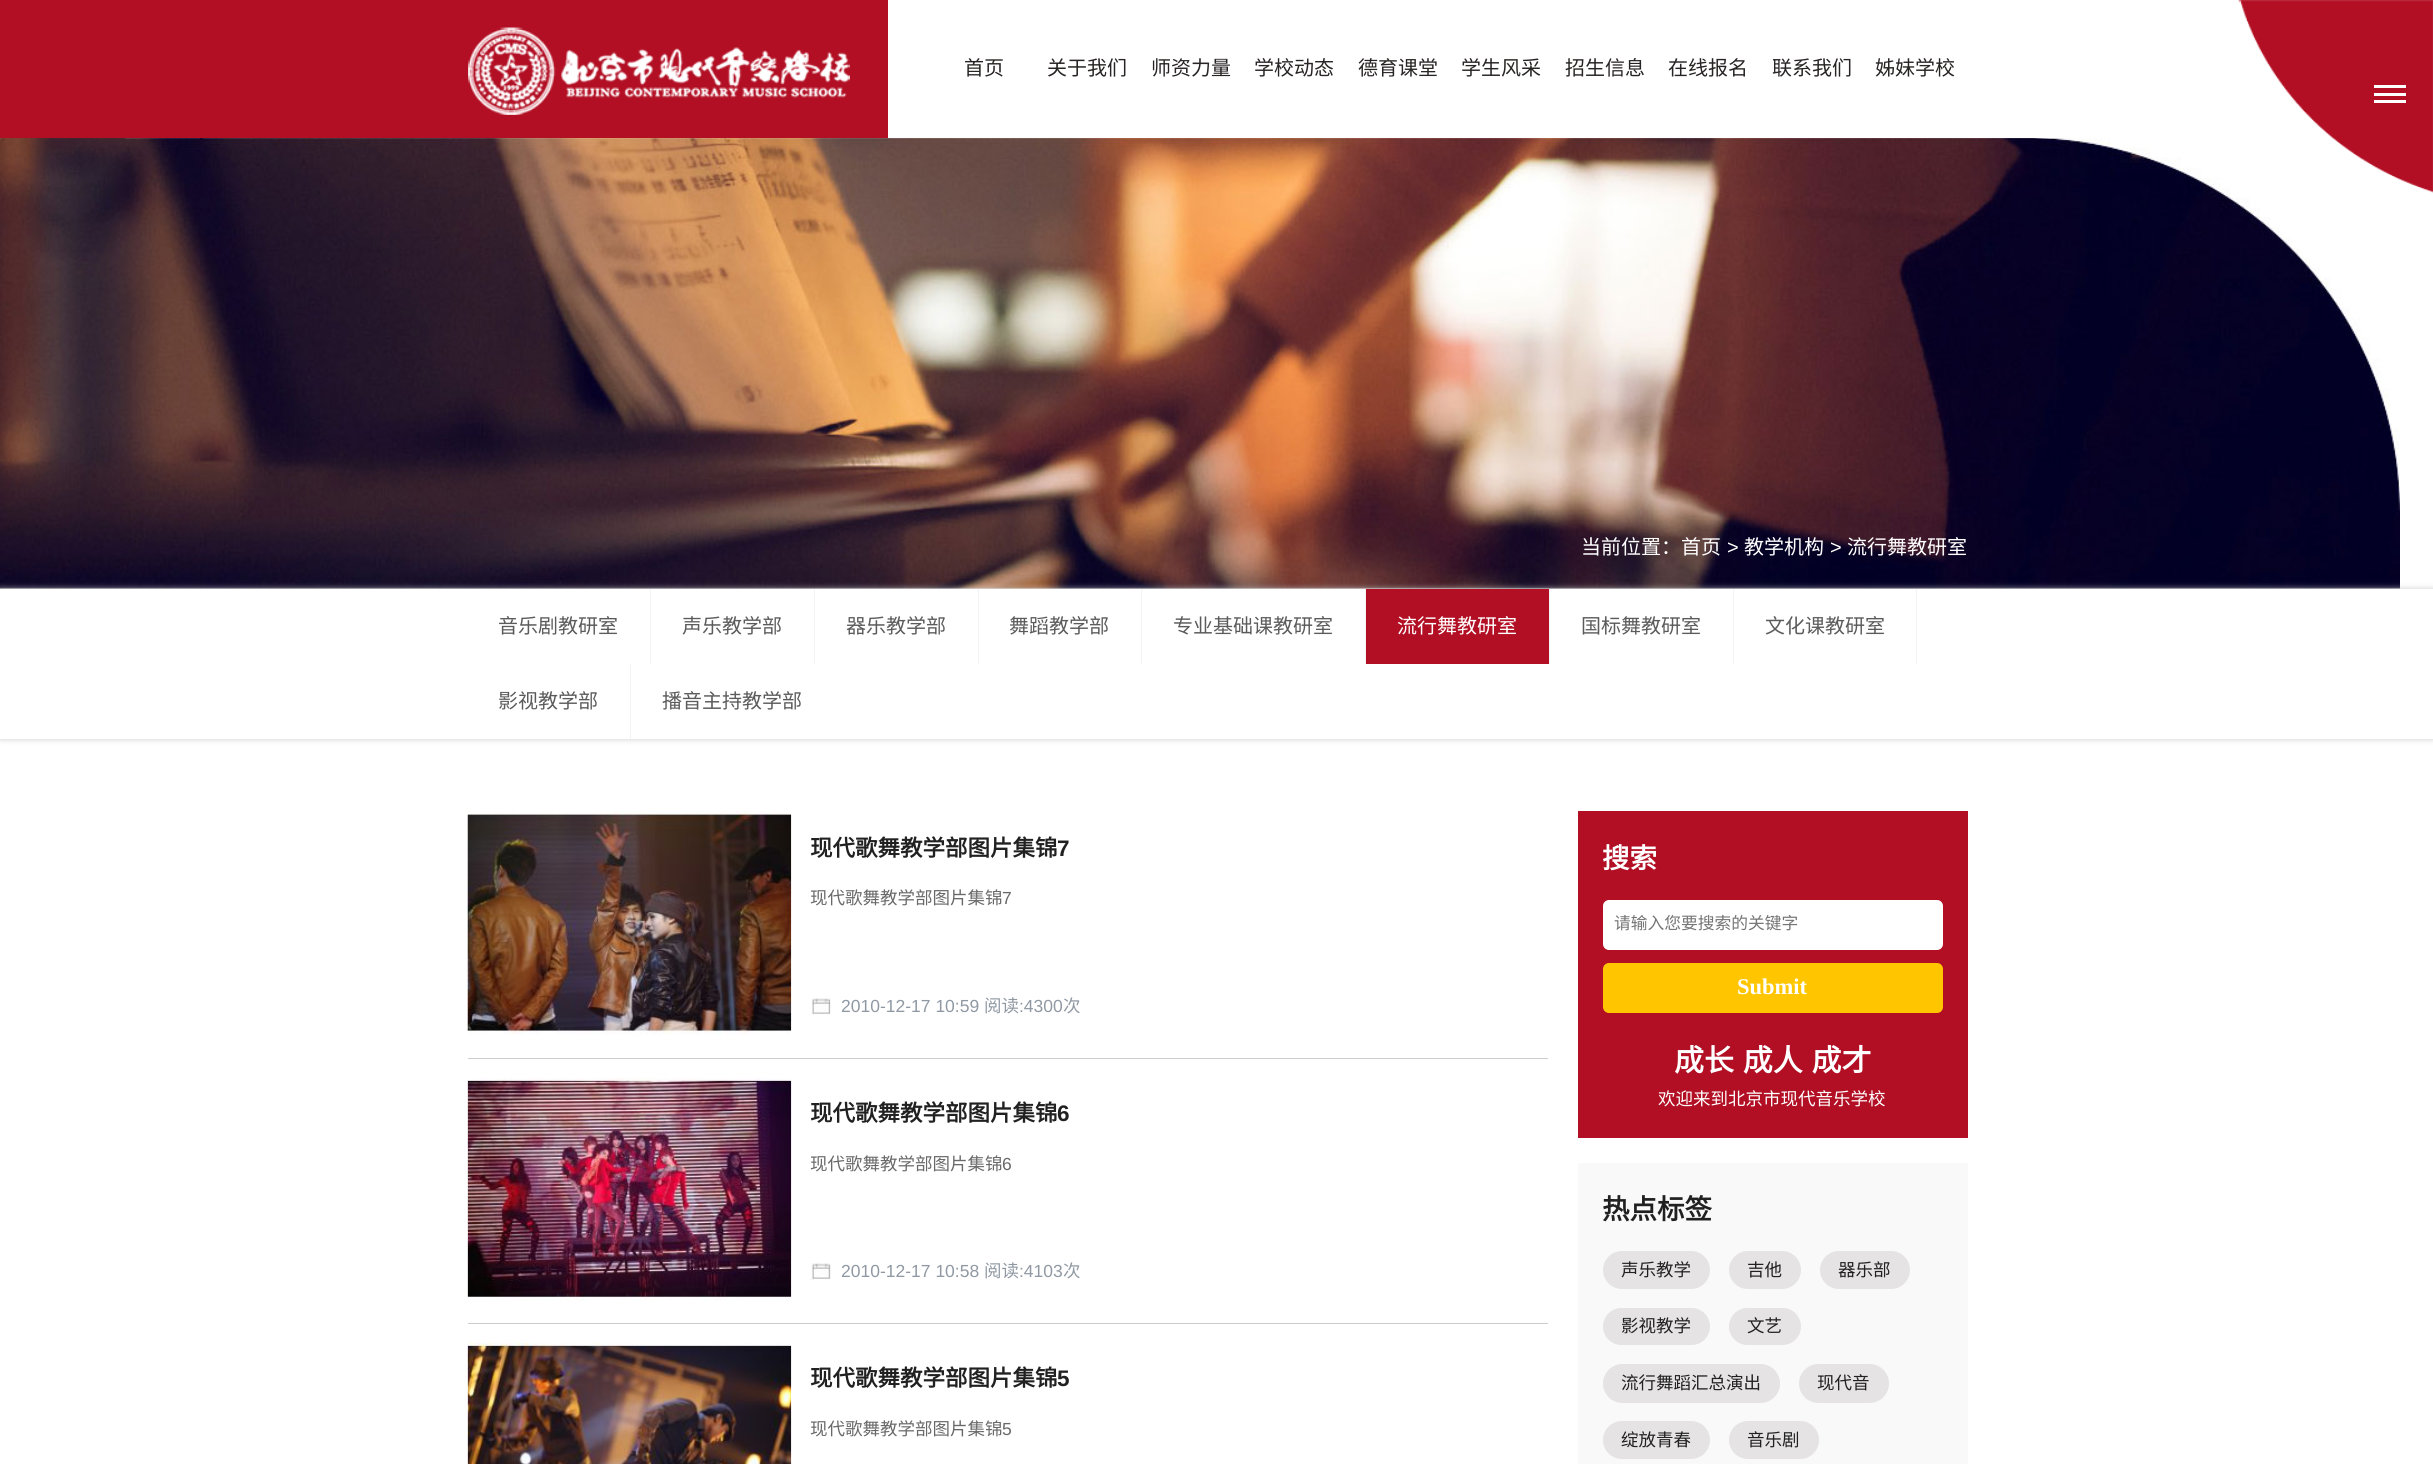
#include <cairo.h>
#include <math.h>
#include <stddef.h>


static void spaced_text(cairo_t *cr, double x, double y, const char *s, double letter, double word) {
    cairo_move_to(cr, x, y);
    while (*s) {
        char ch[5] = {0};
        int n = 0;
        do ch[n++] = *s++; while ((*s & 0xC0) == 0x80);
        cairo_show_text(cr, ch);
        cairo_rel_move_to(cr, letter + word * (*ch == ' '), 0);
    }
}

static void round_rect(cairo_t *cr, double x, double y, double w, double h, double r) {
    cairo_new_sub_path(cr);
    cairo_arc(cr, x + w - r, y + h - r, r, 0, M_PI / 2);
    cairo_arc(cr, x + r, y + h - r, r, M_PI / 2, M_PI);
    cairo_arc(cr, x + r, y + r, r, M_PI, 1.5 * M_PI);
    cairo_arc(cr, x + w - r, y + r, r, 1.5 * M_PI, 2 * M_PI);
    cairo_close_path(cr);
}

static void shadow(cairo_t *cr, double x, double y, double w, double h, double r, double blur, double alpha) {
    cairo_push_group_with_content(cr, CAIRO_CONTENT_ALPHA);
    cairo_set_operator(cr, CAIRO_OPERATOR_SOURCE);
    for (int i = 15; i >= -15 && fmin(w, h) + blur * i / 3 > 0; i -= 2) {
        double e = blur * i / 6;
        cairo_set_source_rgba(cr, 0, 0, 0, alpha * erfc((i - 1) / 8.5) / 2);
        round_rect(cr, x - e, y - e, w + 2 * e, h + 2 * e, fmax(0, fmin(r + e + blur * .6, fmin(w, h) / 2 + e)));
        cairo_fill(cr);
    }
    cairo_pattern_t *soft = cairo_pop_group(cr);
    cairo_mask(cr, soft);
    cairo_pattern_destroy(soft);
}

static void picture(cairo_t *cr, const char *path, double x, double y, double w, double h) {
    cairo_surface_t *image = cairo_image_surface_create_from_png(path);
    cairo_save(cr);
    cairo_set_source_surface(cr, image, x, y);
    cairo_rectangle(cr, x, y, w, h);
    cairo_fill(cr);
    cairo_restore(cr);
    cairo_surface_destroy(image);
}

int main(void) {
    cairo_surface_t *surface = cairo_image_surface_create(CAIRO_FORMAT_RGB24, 2433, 1464);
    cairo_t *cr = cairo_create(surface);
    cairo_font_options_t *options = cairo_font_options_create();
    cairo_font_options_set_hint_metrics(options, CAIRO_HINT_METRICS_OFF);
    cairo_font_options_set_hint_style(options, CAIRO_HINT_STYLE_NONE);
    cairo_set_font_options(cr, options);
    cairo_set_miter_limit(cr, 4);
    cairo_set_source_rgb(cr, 1, 1, 1);
    cairo_paint(cr);
    cairo_set_source_rgb(cr, 0.698, 0.059, 0.141);
    cairo_rectangle(cr, 0, 0, 888, 138);
    cairo_fill(cr);
    picture(cr, "img1.png", 468, 27, 382, 88);
    cairo_select_font_face(cr, "Noto Sans CJK SC", CAIRO_FONT_SLANT_NORMAL, CAIRO_FONT_WEIGHT_NORMAL);
    cairo_set_font_size(cr, 20);
    cairo_set_source_rgb(cr, 0.157, 0.141, 0.141);
    cairo_move_to(cr, 964, 75);
    cairo_show_text(cr, "首页");
    cairo_move_to(cr, 1047, 75);
    cairo_show_text(cr, "关于我们");
    cairo_move_to(cr, 1151, 75);
    cairo_show_text(cr, "师资力量");
    cairo_move_to(cr, 1254, 75);
    cairo_show_text(cr, "学校动态");
    cairo_move_to(cr, 1358, 75);
    cairo_show_text(cr, "德育课堂");
    cairo_move_to(cr, 1461, 75);
    cairo_show_text(cr, "学生风采");
    cairo_move_to(cr, 1565, 75);
    cairo_show_text(cr, "招生信息");
    cairo_move_to(cr, 1668, 75);
    cairo_show_text(cr, "在线报名");
    cairo_move_to(cr, 1772, 75);
    cairo_show_text(cr, "联系我们");
    cairo_move_to(cr, 1875, 75);
    cairo_show_text(cr, "姊妹学校");
    picture(cr, "img3.png", 0, 138, 2400, 451);
    picture(cr, "img2.png", 2238, 0, 195, 193);
    cairo_set_source_rgb(cr, 1, 1, 1);
    cairo_rectangle(cr, 2374, 85, 32, 3);
    cairo_fill(cr);
    cairo_rectangle(cr, 2374, 93, 32, 3);
    cairo_fill(cr);
    cairo_rectangle(cr, 2374, 100, 32, 3);
    cairo_fill(cr);
    cairo_move_to(cr, 1581, 554);
    cairo_show_text(cr, "当前位置：首页");
    cairo_select_font_face(cr, "Liberation Sans", CAIRO_FONT_SLANT_NORMAL, CAIRO_FONT_WEIGHT_NORMAL);
    cairo_move_to(cr, 1727, 554);
    cairo_show_text(cr, ">");
    cairo_select_font_face(cr, "Noto Sans CJK SC", CAIRO_FONT_SLANT_NORMAL, CAIRO_FONT_WEIGHT_NORMAL);
    cairo_move_to(cr, 1744, 554);
    cairo_show_text(cr, "教学机构");
    cairo_select_font_face(cr, "Liberation Sans", CAIRO_FONT_SLANT_NORMAL, CAIRO_FONT_WEIGHT_NORMAL);
    cairo_move_to(cr, 1830, 554);
    cairo_show_text(cr, ">");
    cairo_select_font_face(cr, "Noto Sans CJK SC", CAIRO_FONT_SLANT_NORMAL, CAIRO_FONT_WEIGHT_NORMAL);
    cairo_move_to(cr, 1847, 554);
    cairo_show_text(cr, "流行舞教研室");
    cairo_set_source_rgb(cr, 0.8, 0.8, 0.8);
    shadow(cr, 0, 589, 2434, 150, 0, 3, 1);
    cairo_set_source_rgb(cr, 1, 1, 1);
    cairo_rectangle(cr, 0, 589, 2433, 150);
    cairo_fill(cr);
    cairo_set_source_rgb(cr, 0.953, 0.953, 0.953);
    cairo_rectangle(cr, 650, 589, 1, 75);
    cairo_fill(cr);
    cairo_set_source_rgb(cr, 0.357, 0.357, 0.357);
    cairo_move_to(cr, 498, 633);
    cairo_show_text(cr, "音乐剧教研室");
    cairo_set_source_rgb(cr, 0.953, 0.953, 0.953);
    cairo_rectangle(cr, 814, 589, 1, 75);
    cairo_fill(cr);
    cairo_set_source_rgb(cr, 0.357, 0.357, 0.357);
    cairo_move_to(cr, 682, 633);
    cairo_show_text(cr, "声乐教学部");
    cairo_set_source_rgb(cr, 0.953, 0.953, 0.953);
    cairo_rectangle(cr, 978, 589, 1, 75);
    cairo_fill(cr);
    cairo_set_source_rgb(cr, 0.357, 0.357, 0.357);
    cairo_move_to(cr, 846, 633);
    cairo_show_text(cr, "器乐教学部");
    cairo_set_source_rgb(cr, 0.953, 0.953, 0.953);
    cairo_rectangle(cr, 1141, 589, 1, 75);
    cairo_fill(cr);
    cairo_set_source_rgb(cr, 0.357, 0.357, 0.357);
    cairo_move_to(cr, 1009, 633);
    cairo_show_text(cr, "舞蹈教学部");
    cairo_set_source_rgb(cr, 0.953, 0.953, 0.953);
    cairo_rectangle(cr, 1365, 589, 1, 75);
    cairo_fill(cr);
    cairo_set_source_rgb(cr, 0.357, 0.357, 0.357);
    cairo_move_to(cr, 1173, 633);
    cairo_show_text(cr, "专业基础课教研室");
    cairo_set_source_rgb(cr, 0.698, 0.059, 0.141);
    cairo_rectangle(cr, 1366, 589, 183, 75);
    cairo_fill(cr);
    cairo_set_source_rgb(cr, 0.953, 0.953, 0.953);
    cairo_rectangle(cr, 1549, 589, 1, 75);
    cairo_fill(cr);
    cairo_set_source_rgb(cr, 1, 1, 1);
    cairo_move_to(cr, 1397, 633);
    cairo_show_text(cr, "流行舞教研室");
    cairo_set_source_rgb(cr, 0.953, 0.953, 0.953);
    cairo_rectangle(cr, 1733, 589, 1, 75);
    cairo_fill(cr);
    cairo_set_source_rgb(cr, 0.357, 0.357, 0.357);
    cairo_move_to(cr, 1581, 633);
    cairo_show_text(cr, "国标舞教研室");
    cairo_set_source_rgb(cr, 0.953, 0.953, 0.953);
    cairo_rectangle(cr, 1916, 589, 1, 75);
    cairo_fill(cr);
    cairo_set_source_rgb(cr, 0.357, 0.357, 0.357);
    cairo_move_to(cr, 1765, 633);
    cairo_show_text(cr, "文化课教研室");
    cairo_set_source_rgb(cr, 0.953, 0.953, 0.953);
    cairo_rectangle(cr, 630, 664, 1, 75);
    cairo_fill(cr);
    cairo_set_source_rgb(cr, 0.357, 0.357, 0.357);
    cairo_move_to(cr, 498, 708);
    cairo_show_text(cr, "影视教学部");
    cairo_move_to(cr, 662, 708);
    cairo_show_text(cr, "播音主持教学部");
    cairo_set_source_rgb(cr, 0.8, 0.8, 0.8);
    cairo_rectangle(cr, 468, 1058, 1080, 1);
    cairo_fill(cr);
    picture(cr, "img4.png", 467, 811, 325, 224);
    cairo_select_font_face(cr, "Noto Sans CJK SC", CAIRO_FONT_SLANT_NORMAL, CAIRO_FONT_WEIGHT_BOLD);
    cairo_set_font_size(cr, 22.5);
    cairo_set_source_rgb(cr, 0.129, 0.129, 0.129);
    cairo_move_to(cr, 810, 856);
    cairo_show_text(cr, "现代歌舞教学部图片集锦");
    cairo_select_font_face(cr, "Liberation Sans", CAIRO_FONT_SLANT_NORMAL, CAIRO_FONT_WEIGHT_BOLD);
    cairo_move_to(cr, 1057, 856);
    cairo_show_text(cr, "7");
    cairo_select_font_face(cr, "Noto Sans CJK SC", CAIRO_FONT_SLANT_NORMAL, CAIRO_FONT_WEIGHT_NORMAL);
    cairo_set_font_size(cr, 17.5);
    cairo_set_source_rgb(cr, 0.412, 0.412, 0.412);
    cairo_move_to(cr, 810, 904);
    cairo_show_text(cr, "现代歌舞教学部图片集锦");
    cairo_select_font_face(cr, "Liberation Sans", CAIRO_FONT_SLANT_NORMAL, CAIRO_FONT_WEIGHT_NORMAL);
    cairo_move_to(cr, 1002, 904);
    cairo_show_text(cr, "7");
    picture(cr, "img5.png", 810, 998, 21, 17);
    cairo_set_source_rgb(cr, 0.565, 0.6, 0.639);
    cairo_move_to(cr, 841, 1012);
    cairo_show_text(cr, "2010-12-17 10:59");
    cairo_select_font_face(cr, "Noto Sans CJK SC", CAIRO_FONT_SLANT_NORMAL, CAIRO_FONT_WEIGHT_NORMAL);
    cairo_move_to(cr, 984, 1012);
    cairo_show_text(cr, "阅读");
    cairo_select_font_face(cr, "Liberation Sans", CAIRO_FONT_SLANT_NORMAL, CAIRO_FONT_WEIGHT_NORMAL);
    cairo_move_to(cr, 1019, 1012);
    cairo_show_text(cr, ":4300");
    cairo_select_font_face(cr, "Noto Sans CJK SC", CAIRO_FONT_SLANT_NORMAL, CAIRO_FONT_WEIGHT_NORMAL);
    cairo_move_to(cr, 1063, 1012);
    cairo_show_text(cr, "次");
    cairo_set_source_rgb(cr, 0.8, 0.8, 0.8);
    cairo_rectangle(cr, 468, 1323, 1080, 1);
    cairo_fill(cr);
    picture(cr, "img6.png", 467, 1078, 325, 223);
    cairo_select_font_face(cr, "Noto Sans CJK SC", CAIRO_FONT_SLANT_NORMAL, CAIRO_FONT_WEIGHT_BOLD);
    cairo_set_font_size(cr, 22.5);
    cairo_set_source_rgb(cr, 0.129, 0.129, 0.129);
    cairo_move_to(cr, 810, 1121);
    cairo_show_text(cr, "现代歌舞教学部图片集锦");
    cairo_select_font_face(cr, "Liberation Sans", CAIRO_FONT_SLANT_NORMAL, CAIRO_FONT_WEIGHT_BOLD);
    cairo_move_to(cr, 1057, 1121);
    cairo_show_text(cr, "6");
    cairo_select_font_face(cr, "Noto Sans CJK SC", CAIRO_FONT_SLANT_NORMAL, CAIRO_FONT_WEIGHT_NORMAL);
    cairo_set_font_size(cr, 17.5);
    cairo_set_source_rgb(cr, 0.412, 0.412, 0.412);
    cairo_move_to(cr, 810, 1170);
    cairo_show_text(cr, "现代歌舞教学部图片集锦");
    cairo_select_font_face(cr, "Liberation Sans", CAIRO_FONT_SLANT_NORMAL, CAIRO_FONT_WEIGHT_NORMAL);
    cairo_move_to(cr, 1002, 1170);
    cairo_show_text(cr, "6");
    picture(cr, "img5.png", 810, 1263, 21, 17);
    cairo_set_source_rgb(cr, 0.565, 0.6, 0.639);
    cairo_move_to(cr, 841, 1277);
    cairo_show_text(cr, "2010-12-17 10:58");
    cairo_select_font_face(cr, "Noto Sans CJK SC", CAIRO_FONT_SLANT_NORMAL, CAIRO_FONT_WEIGHT_NORMAL);
    cairo_move_to(cr, 984, 1277);
    cairo_show_text(cr, "阅读");
    cairo_select_font_face(cr, "Liberation Sans", CAIRO_FONT_SLANT_NORMAL, CAIRO_FONT_WEIGHT_NORMAL);
    cairo_move_to(cr, 1019, 1277);
    cairo_show_text(cr, ":4103");
    cairo_select_font_face(cr, "Noto Sans CJK SC", CAIRO_FONT_SLANT_NORMAL, CAIRO_FONT_WEIGHT_NORMAL);
    cairo_move_to(cr, 1063, 1277);
    cairo_show_text(cr, "次");
    picture(cr, "img7.png", 467, 1342, 325, 122);
    cairo_select_font_face(cr, "Noto Sans CJK SC", CAIRO_FONT_SLANT_NORMAL, CAIRO_FONT_WEIGHT_BOLD);
    cairo_set_font_size(cr, 22.5);
    cairo_set_source_rgb(cr, 0.129, 0.129, 0.129);
    cairo_move_to(cr, 810, 1386);
    cairo_show_text(cr, "现代歌舞教学部图片集锦");
    cairo_select_font_face(cr, "Liberation Sans", CAIRO_FONT_SLANT_NORMAL, CAIRO_FONT_WEIGHT_BOLD);
    cairo_move_to(cr, 1057, 1386);
    cairo_show_text(cr, "5");
    cairo_select_font_face(cr, "Noto Sans CJK SC", CAIRO_FONT_SLANT_NORMAL, CAIRO_FONT_WEIGHT_NORMAL);
    cairo_set_font_size(cr, 17.5);
    cairo_set_source_rgb(cr, 0.412, 0.412, 0.412);
    cairo_move_to(cr, 810, 1435);
    cairo_show_text(cr, "现代歌舞教学部图片集锦");
    cairo_select_font_face(cr, "Liberation Sans", CAIRO_FONT_SLANT_NORMAL, CAIRO_FONT_WEIGHT_NORMAL);
    cairo_move_to(cr, 1002, 1435);
    cairo_show_text(cr, "5");
    cairo_set_source_rgb(cr, 0.698, 0.059, 0.141);
    cairo_rectangle(cr, 1578, 811, 390, 327);
    cairo_fill(cr);
    cairo_select_font_face(cr, "Noto Sans CJK SC", CAIRO_FONT_SLANT_NORMAL, CAIRO_FONT_WEIGHT_BOLD);
    cairo_set_font_size(cr, 27.5);
    cairo_set_source_rgb(cr, 1, 1, 1);
    cairo_move_to(cr, 1602, 868);
    cairo_show_text(cr, "搜索");
    round_rect(cr, 1603, 900, 340, 50, 6);
    cairo_fill(cr);
    cairo_select_font_face(cr, "Noto Sans CJK SC", CAIRO_FONT_SLANT_NORMAL, CAIRO_FONT_WEIGHT_NORMAL);
    cairo_set_font_size(cr, 16.75);
    cairo_set_source_rgb(cr, 0.459, 0.459, 0.459);
    cairo_move_to(cr, 1614, 929);
    cairo_show_text(cr, "请输入您要搜索的关键字");
    cairo_set_source_rgb(cr, 1, 0.776, 0);
    round_rect(cr, 1603, 963, 340, 50, 6);
    cairo_fill(cr);
    cairo_select_font_face(cr, "Liberation Serif", CAIRO_FONT_SLANT_NORMAL, CAIRO_FONT_WEIGHT_BOLD);
    cairo_set_font_size(cr, 22.5);
    cairo_set_source_rgb(cr, 1, 1, 1);
    cairo_move_to(cr, 1737, 994);
    cairo_show_text(cr, "Submit");
    cairo_select_font_face(cr, "Noto Sans CJK SC", CAIRO_FONT_SLANT_NORMAL, CAIRO_FONT_WEIGHT_BOLD);
    cairo_set_font_size(cr, 30);
    spaced_text(cr, 1674, 1071, "成长 成人 成才", 0, 2);
    cairo_select_font_face(cr, "Noto Sans CJK SC", CAIRO_FONT_SLANT_NORMAL, CAIRO_FONT_WEIGHT_NORMAL);
    cairo_set_font_size(cr, 17.5);
    cairo_move_to(cr, 1658, 1105);
    cairo_show_text(cr, "欢迎来到北京市现代音乐学校");
    cairo_set_source_rgb(cr, 0.973, 0.973, 0.973);
    cairo_rectangle(cr, 1578, 1163, 390, 301);
    cairo_fill(cr);
    cairo_select_font_face(cr, "Noto Sans CJK SC", CAIRO_FONT_SLANT_NORMAL, CAIRO_FONT_WEIGHT_BOLD);
    cairo_set_font_size(cr, 27.5);
    cairo_set_source_rgb(cr, 0.129, 0.129, 0.129);
    cairo_move_to(cr, 1602, 1219);
    cairo_show_text(cr, "热点标签");
    cairo_set_source_rgb(cr, 0.898, 0.89, 0.89);
    round_rect(cr, 1603, 1251, 107, 38, 19);
    cairo_fill(cr);
    cairo_select_font_face(cr, "Noto Sans CJK SC", CAIRO_FONT_SLANT_NORMAL, CAIRO_FONT_WEIGHT_NORMAL);
    cairo_set_font_size(cr, 17.5);
    cairo_set_source_rgb(cr, 0.129, 0.129, 0.129);
    cairo_move_to(cr, 1621, 1276);
    cairo_show_text(cr, "声乐教学");
    cairo_set_source_rgb(cr, 0.898, 0.89, 0.89);
    round_rect(cr, 1729, 1251, 72, 38, 19);
    cairo_fill(cr);
    cairo_set_source_rgb(cr, 0.129, 0.129, 0.129);
    cairo_move_to(cr, 1747, 1276);
    cairo_show_text(cr, "吉他");
    cairo_set_source_rgb(cr, 0.898, 0.89, 0.89);
    round_rect(cr, 1820, 1251, 90, 38, 19);
    cairo_fill(cr);
    cairo_set_source_rgb(cr, 0.129, 0.129, 0.129);
    cairo_move_to(cr, 1838, 1276);
    cairo_show_text(cr, "器乐部");
    cairo_set_source_rgb(cr, 0.898, 0.89, 0.89);
    round_rect(cr, 1603, 1308, 107, 37, 18.5);
    cairo_fill(cr);
    cairo_set_source_rgb(cr, 0.129, 0.129, 0.129);
    cairo_move_to(cr, 1621, 1332);
    cairo_show_text(cr, "影视教学");
    cairo_set_source_rgb(cr, 0.898, 0.89, 0.89);
    round_rect(cr, 1729, 1308, 72, 37, 18.5);
    cairo_fill(cr);
    cairo_set_source_rgb(cr, 0.129, 0.129, 0.129);
    cairo_move_to(cr, 1747, 1332);
    cairo_show_text(cr, "文艺");
    cairo_set_source_rgb(cr, 0.898, 0.89, 0.89);
    round_rect(cr, 1603, 1364, 177, 39, 19.5);
    cairo_fill(cr);
    cairo_set_source_rgb(cr, 0.129, 0.129, 0.129);
    cairo_move_to(cr, 1621, 1389);
    cairo_show_text(cr, "流行舞蹈汇总演出");
    cairo_set_source_rgb(cr, 0.898, 0.89, 0.89);
    round_rect(cr, 1799, 1364, 90, 39, 19.5);
    cairo_fill(cr);
    cairo_set_source_rgb(cr, 0.129, 0.129, 0.129);
    cairo_move_to(cr, 1817, 1389);
    cairo_show_text(cr, "现代音");
    cairo_set_source_rgb(cr, 0.898, 0.89, 0.89);
    round_rect(cr, 1603, 1421, 107, 38, 19);
    cairo_fill(cr);
    cairo_set_source_rgb(cr, 0.129, 0.129, 0.129);
    cairo_move_to(cr, 1621, 1446);
    cairo_show_text(cr, "绽放青春");
    cairo_set_source_rgb(cr, 0.898, 0.89, 0.89);
    round_rect(cr, 1729, 1421, 90, 38, 19);
    cairo_fill(cr);
    cairo_set_source_rgb(cr, 0.129, 0.129, 0.129);
    cairo_move_to(cr, 1747, 1446);
    cairo_show_text(cr, "音乐剧");
    cairo_surface_write_to_png(surface, "page.png");
    cairo_font_options_destroy(options);
    cairo_destroy(cr);
    cairo_surface_destroy(surface);
    return 0;
}
